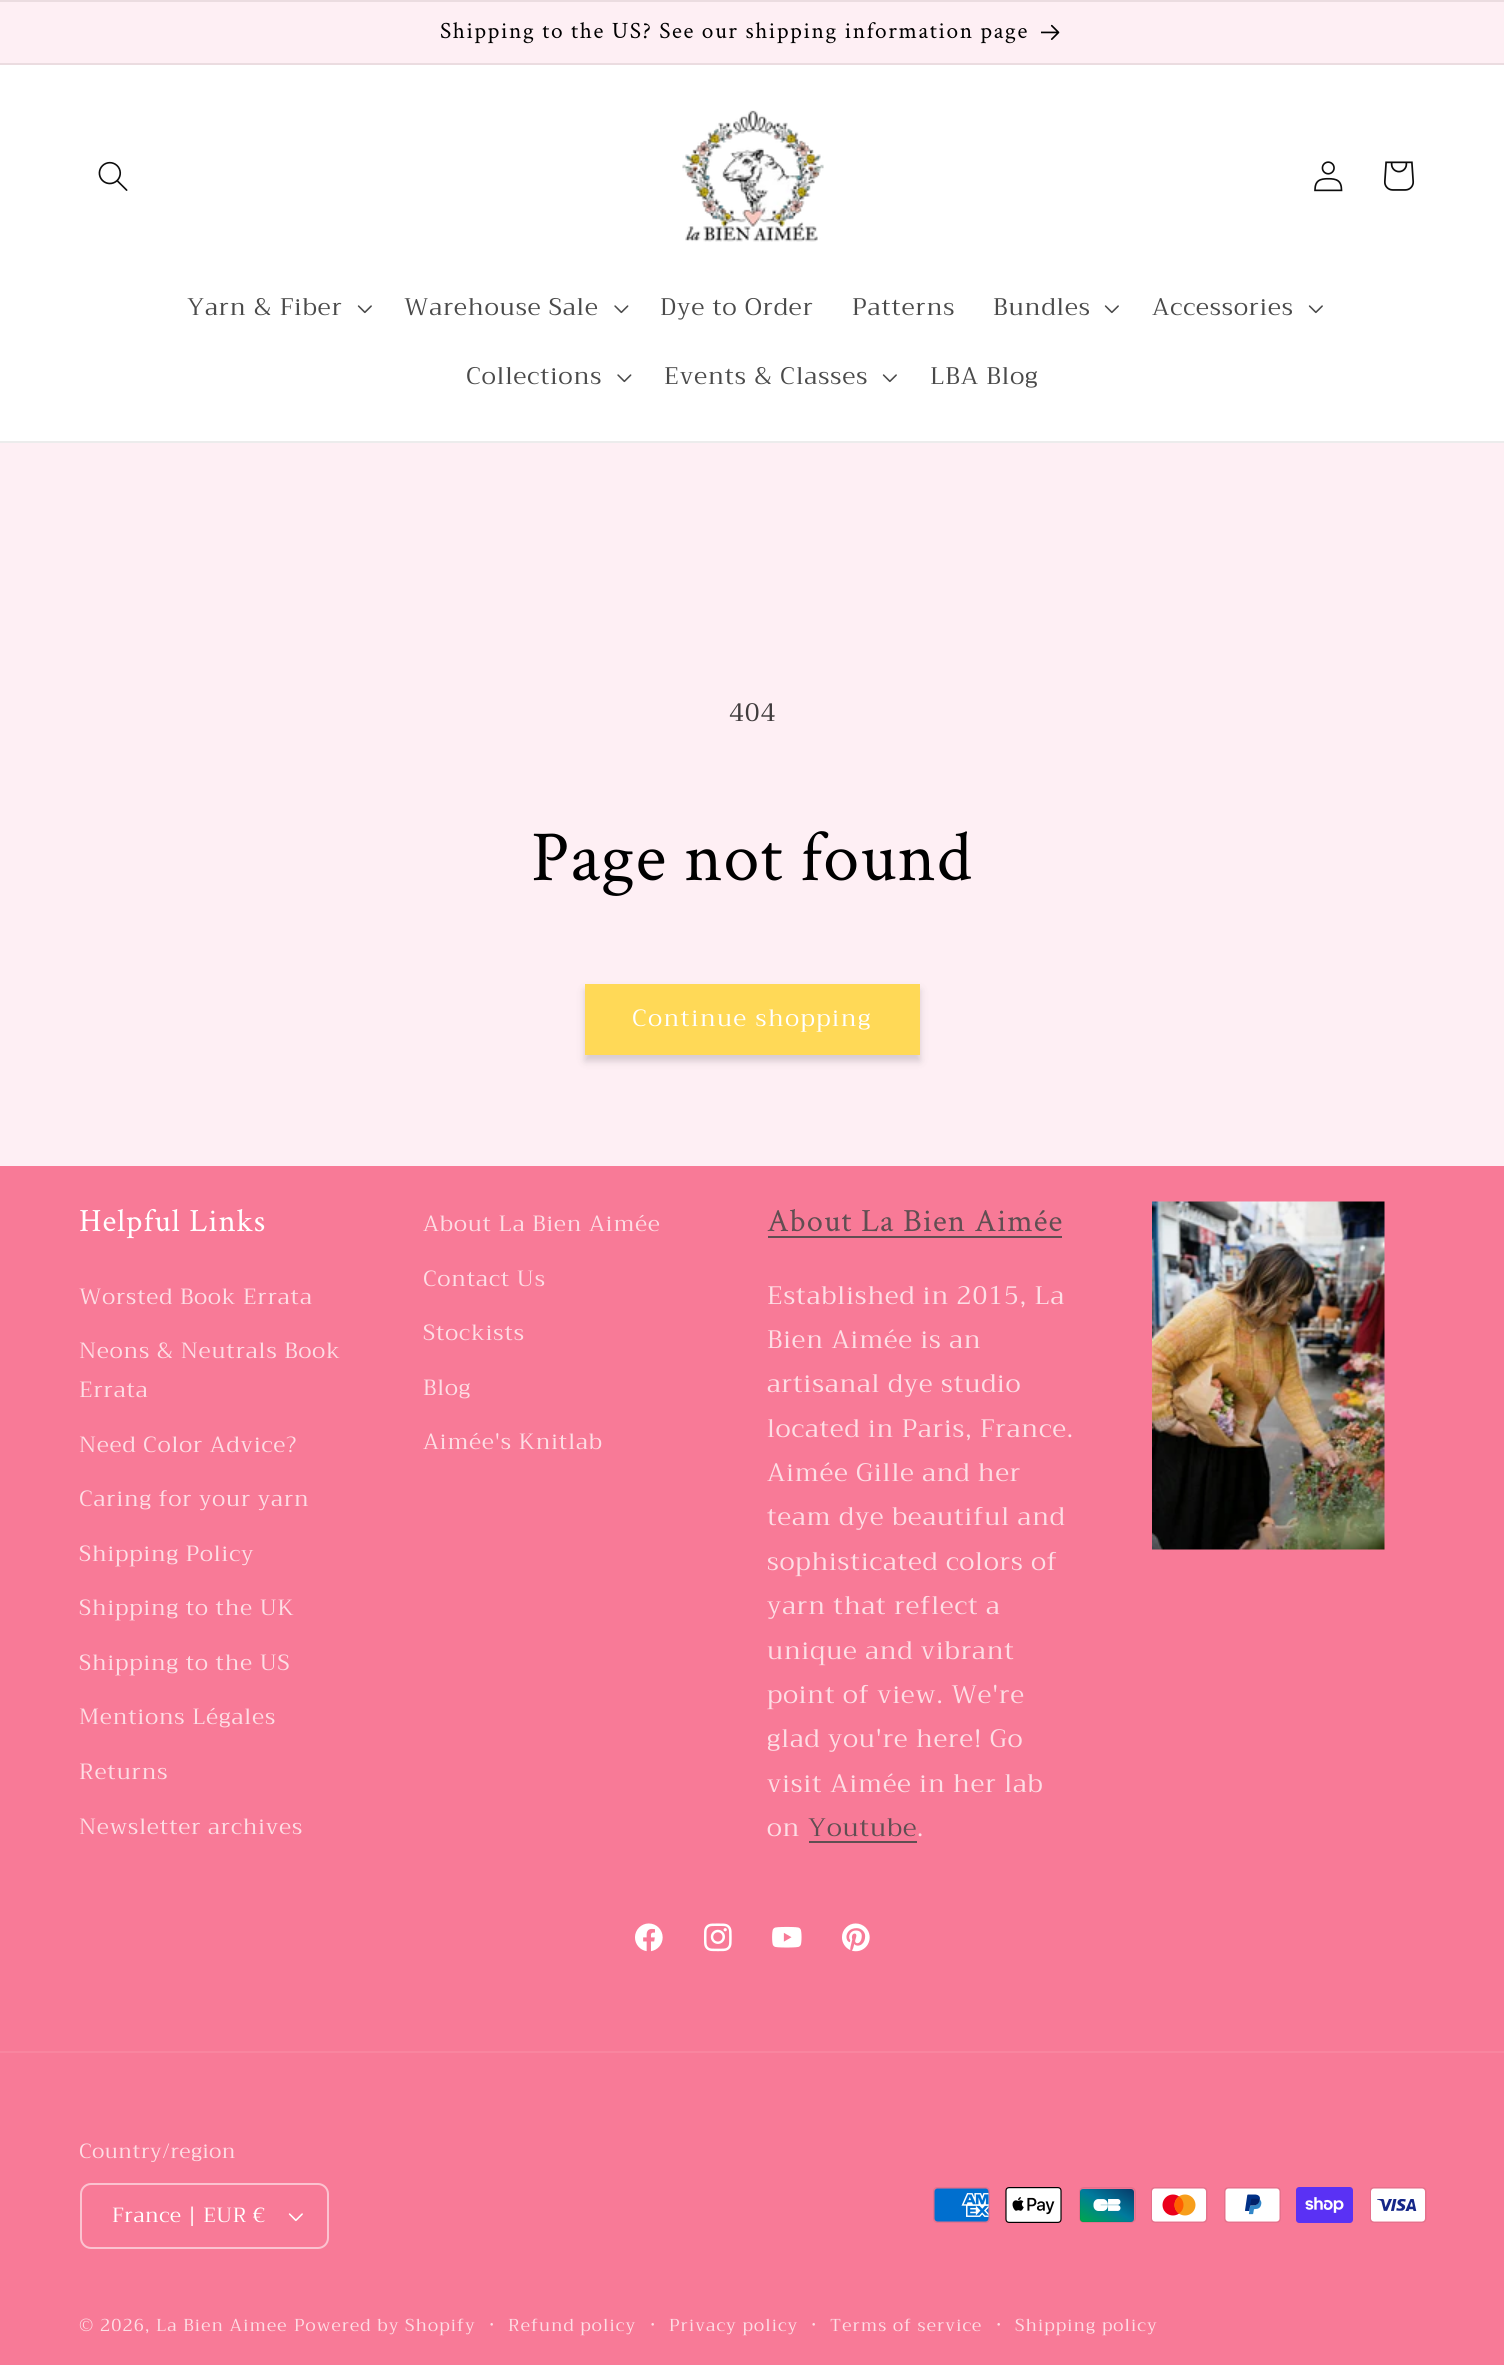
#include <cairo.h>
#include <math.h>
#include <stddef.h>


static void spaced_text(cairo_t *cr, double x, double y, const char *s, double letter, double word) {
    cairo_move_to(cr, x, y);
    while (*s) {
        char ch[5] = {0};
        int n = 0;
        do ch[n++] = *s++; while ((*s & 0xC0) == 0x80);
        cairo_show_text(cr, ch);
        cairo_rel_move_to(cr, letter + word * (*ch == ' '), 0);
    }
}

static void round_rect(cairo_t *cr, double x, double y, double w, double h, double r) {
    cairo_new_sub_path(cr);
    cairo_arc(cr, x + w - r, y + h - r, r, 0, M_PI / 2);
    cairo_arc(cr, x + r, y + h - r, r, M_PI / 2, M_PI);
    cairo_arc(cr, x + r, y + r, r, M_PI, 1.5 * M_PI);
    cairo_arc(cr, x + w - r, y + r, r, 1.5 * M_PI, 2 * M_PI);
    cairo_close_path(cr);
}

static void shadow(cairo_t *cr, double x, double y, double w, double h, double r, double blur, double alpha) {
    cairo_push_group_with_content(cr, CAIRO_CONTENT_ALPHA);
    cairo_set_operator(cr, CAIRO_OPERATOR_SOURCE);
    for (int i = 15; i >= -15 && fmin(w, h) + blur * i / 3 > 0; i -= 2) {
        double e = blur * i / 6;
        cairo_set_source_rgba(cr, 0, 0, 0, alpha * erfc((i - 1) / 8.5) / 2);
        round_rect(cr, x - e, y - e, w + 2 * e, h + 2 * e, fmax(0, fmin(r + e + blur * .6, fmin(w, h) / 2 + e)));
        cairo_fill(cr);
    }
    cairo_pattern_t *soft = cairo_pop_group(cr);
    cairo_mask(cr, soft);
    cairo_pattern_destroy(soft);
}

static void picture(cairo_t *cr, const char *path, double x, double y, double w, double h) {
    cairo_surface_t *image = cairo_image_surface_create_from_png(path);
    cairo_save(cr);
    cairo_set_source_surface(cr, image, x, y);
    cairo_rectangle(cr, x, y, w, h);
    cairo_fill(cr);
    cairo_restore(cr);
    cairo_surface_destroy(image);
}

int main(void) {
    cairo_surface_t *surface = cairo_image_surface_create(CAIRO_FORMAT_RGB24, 1504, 2365);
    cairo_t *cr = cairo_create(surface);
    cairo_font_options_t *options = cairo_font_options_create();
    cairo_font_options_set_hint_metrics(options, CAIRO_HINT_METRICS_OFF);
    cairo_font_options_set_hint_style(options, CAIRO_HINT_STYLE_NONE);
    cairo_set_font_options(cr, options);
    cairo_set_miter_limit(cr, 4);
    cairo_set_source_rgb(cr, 0.996, 0.937, 0.957);
    cairo_paint(cr);
    cairo_set_source_rgb(cr, 0.918, 0.863, 0.878);
    cairo_rectangle(cr, 0, 0, 1504, 2);
    cairo_fill(cr);
    cairo_rectangle(cr, 0, 63, 1504, 2);
    cairo_fill(cr);
    cairo_select_font_face(cr, "Crimson Text", CAIRO_FONT_SLANT_NORMAL, CAIRO_FONT_WEIGHT_NORMAL);
    cairo_set_font_size(cr, 23.4);
    cairo_set_source_rgb(cr, 0, 0, 0);
    spaced_text(cr, 440, 38, "Shipping to the US? See our shipping information page", 1.58, 0);
    picture(cr, "img1.png", 1041, 24, 19, 16);
    cairo_set_source_rgb(cr, 1, 1, 1);
    cairo_rectangle(cr, 0, 65, 1504, 376);
    cairo_fill(cr);
    cairo_set_source_rgb(cr, 0.925, 0.925, 0.925);
    cairo_rectangle(cr, 0, 441, 1504, 2);
    cairo_fill(cr);
    picture(cr, "img2.png", 98, 161, 30, 30);
    picture(cr, "img3.png", 682, 110, 142, 132);
    picture(cr, "img4.png", 1314, 161, 29, 31);
    picture(cr, "img5.png", 1384, 161, 31, 30);
    cairo_select_font_face(cr, "Trirong", CAIRO_FONT_SLANT_NORMAL, CAIRO_FONT_WEIGHT_NORMAL);
    cairo_set_font_size(cr, 24);
    cairo_set_source_rgb(cr, 0.29, 0.29, 0.29);
    spaced_text(cr, 187, 315, "Yarn & Fiber", 0.95, 0);
    picture(cr, "img6.png", 357, 305, 15, 9);
    spaced_text(cr, 404, 315, "Warehouse Sale", 0.95, 0);
    picture(cr, "img7.png", 614, 305, 15, 9);
    spaced_text(cr, 660, 315, "Dye to Order", 0.95, 0);
    spaced_text(cr, 852, 315, "Patterns", 0.95, 0);
    spaced_text(cr, 993, 315, "Bundles", 0.95, 0);
    picture(cr, "img6.png", 1104, 305, 15, 9);
    spaced_text(cr, 1152, 315, "Accessories", 0.95, 0);
    picture(cr, "img6.png", 1308, 305, 15, 9);
    spaced_text(cr, 466, 384, "Collections", 0.95, 0);
    picture(cr, "img7.png", 617, 374, 15, 9);
    spaced_text(cr, 664, 384, "Events & Classes", 0.95, 0);
    picture(cr, "img6.png", 882, 374, 15, 9);
    spaced_text(cr, 930, 384, "LBA Blog", 0.95, 0);
    cairo_set_font_size(cr, 25.25);
    cairo_set_source_rgb(cr, 0.251, 0.235, 0.239);
    spaced_text(cr, 729, 721, "404", 0.95, 0);
    cairo_select_font_face(cr, "Crimson Text", CAIRO_FONT_SLANT_NORMAL, CAIRO_FONT_WEIGHT_NORMAL);
    cairo_set_font_size(cr, 72);
    cairo_set_source_rgb(cr, 0, 0, 0);
    spaced_text(cr, 531, 880, "Page not found", 1.1, 0);
    cairo_set_source_rgb(cr, 0.2, 0.188, 0.231);
    shadow(cr, 585, 990, 335, 71, 0, 4, 0.2);
    cairo_set_source_rgb(cr, 1, 0.851, 0.341);
    cairo_rectangle(cr, 585, 984, 335, 71);
    cairo_fill(cr);
    cairo_select_font_face(cr, "Trirong", CAIRO_FONT_SLANT_NORMAL, CAIRO_FONT_WEIGHT_NORMAL);
    cairo_set_font_size(cr, 23.6);
    cairo_set_source_rgb(cr, 1, 1, 1);
    spaced_text(cr, 632, 1026, "Continue shopping", 1.58, 0);
    cairo_set_source_rgb(cr, 0.969, 0.478, 0.592);
    cairo_rectangle(cr, 0, 1166, 1504, 1199);
    cairo_fill(cr);
    cairo_select_font_face(cr, "Crimson Text", CAIRO_FONT_SLANT_NORMAL, CAIRO_FONT_WEIGHT_NORMAL);
    cairo_set_font_size(cr, 32.5);
    cairo_set_source_rgb(cr, 1, 1, 1);
    spaced_text(cr, 79, 1231, "Helpful Links", 1.1, 0);
    cairo_select_font_face(cr, "Trirong", CAIRO_FONT_SLANT_NORMAL, CAIRO_FONT_WEIGHT_NORMAL);
    cairo_set_font_size(cr, 22);
    cairo_set_source_rgb(cr, 0.992, 0.871, 0.898);
    spaced_text(cr, 79, 1304, "Worsted Book Errata", 0.95, 0);
    spaced_text(cr, 79, 1358, "Neons & Neutrals Book", 0.95, 0);
    spaced_text(cr, 79, 1397, "Errata", 0.95, 0);
    spaced_text(cr, 79, 1452, "Need Color Advice?", 0.95, 0);
    spaced_text(cr, 79, 1506, "Caring for your yarn", 0.95, 0);
    spaced_text(cr, 79, 1561, "Shipping Policy", 0.95, 0);
    spaced_text(cr, 79, 1615, "Shipping to the UK", 0.95, 0);
    spaced_text(cr, 79, 1670, "Shipping to the US", 0.95, 0);
    spaced_text(cr, 79, 1724, "Mentions Légales", 0.95, 0);
    spaced_text(cr, 79, 1779, "Returns", 0.95, 0);
    spaced_text(cr, 79, 1834, "Newsletter archives", 0.95, 0);
    spaced_text(cr, 423, 1231, "About La Bien Aimée", 0.95, 0);
    spaced_text(cr, 423, 1286, "Contact Us", 0.95, 0);
    spaced_text(cr, 423, 1340, "Stockists", 0.95, 0);
    spaced_text(cr, 423, 1395, "Blog", 0.95, 0);
    spaced_text(cr, 423, 1449, "Aimée's Knitlab", 0.95, 0);
    cairo_select_font_face(cr, "Crimson Text", CAIRO_FONT_SLANT_NORMAL, CAIRO_FONT_WEIGHT_NORMAL);
    cairo_set_font_size(cr, 32.5);
    cairo_set_source_rgb(cr, 0.38, 0.306, 0.322);
    spaced_text(cr, 767, 1231, "About La Bien Aimée", 1.1, 0);
    cairo_rectangle(cr, 768, 1236, 294, 2);
    cairo_fill(cr);
    cairo_select_font_face(cr, "Trirong", CAIRO_FONT_SLANT_NORMAL, CAIRO_FONT_WEIGHT_NORMAL);
    cairo_set_font_size(cr, 25.25);
    cairo_set_source_rgb(cr, 0.992, 0.871, 0.898);
    spaced_text(cr, 767, 1304, "Established in 2015, La", 0.95, 0);
    spaced_text(cr, 767, 1348, "Bien Aimée is an", 0.95, 0);
    spaced_text(cr, 767, 1392, "artisanal dye studio", 0.95, 0);
    spaced_text(cr, 767, 1437, "located in Paris, France.", 0.95, 0);
    spaced_text(cr, 767, 1481, "Aimée Gille and her", 0.95, 0);
    spaced_text(cr, 767, 1525, "team dye beautiful and", 0.95, 0);
    spaced_text(cr, 767, 1570, "sophisticated colors of", 0.95, 0);
    spaced_text(cr, 767, 1614, "yarn that reflect a", 0.95, 0);
    spaced_text(cr, 767, 1659, "unique and vibrant", 0.95, 0);
    spaced_text(cr, 767, 1703, "point of view. We're", 0.95, 0);
    spaced_text(cr, 767, 1747, "glad you're here! Go", 0.95, 0);
    spaced_text(cr, 767, 1792, "visit Aimée in her lab", 0.95, 0);
    spaced_text(cr, 767, 1836, "on", 0.95, 0);
    cairo_set_source_rgb(cr, 0.38, 0.306, 0.322);
    spaced_text(cr, 808, 1836, "Youtube", 0.95, 0);
    cairo_rectangle(cr, 809, 1841, 108, 2);
    cairo_fill(cr);
    cairo_set_source_rgb(cr, 0.992, 0.871, 0.898);
    spaced_text(cr, 917, 1836, ".", 0.95, 0);
    picture(cr, "img8.png", 1152, 1201, 233, 349);
    picture(cr, "img9.png", 635, 1923, 28, 29);
    picture(cr, "img10.png", 703, 1923, 29, 29);
    picture(cr, "img11.png", 772, 1926, 30, 22);
    picture(cr, "img12.png", 842, 1923, 28, 29);
    cairo_set_source_rgb(cr, 0.973, 0.522, 0.624);
    cairo_rectangle(cr, 0, 2051, 1504, 2);
    cairo_fill(cr);
    cairo_set_font_size(cr, 20.5);
    cairo_set_source_rgb(cr, 0.992, 0.871, 0.898);
    spaced_text(cr, 79, 2158, "Country/region", 0.6, 0);
    picture(cr, "img13.png", 288, 2213, 15, 9);
    round_rect(cr, 81, 2184, 247, 64, 10);
    cairo_set_source_rgb(cr, 0.984, 0.765, 0.816);
    cairo_stroke(cr);
    cairo_set_source_rgb(cr, 1, 1, 1);
    spaced_text(cr, 112, 2222, "France | EUR €", 0.6, 0);
    picture(cr, "img14.png", 933, 2187, 57, 36);
    picture(cr, "img15.png", 1005, 2187, 57, 36);
    picture(cr, "img16.png", 1079, 2187, 57, 36);
    picture(cr, "img17.png", 1151, 2187, 57, 36);
    picture(cr, "img18.png", 1224, 2187, 57, 36);
    picture(cr, "img19.png", 1296, 2187, 57, 36);
    picture(cr, "img20.png", 1370, 2187, 57, 36);
    cairo_set_font_size(cr, 17.25);
    cairo_set_source_rgb(cr, 0.992, 0.871, 0.898);
    spaced_text(cr, 79, 2331, "© 2026, La Bien Aimee", 1.1, 0);
    spaced_text(cr, 294, 2331, "Powered by Shopify", 1.1, 0);
    cairo_set_font_size(cr, 19);
    spaced_text(cr, 489, 2331, "·", 1.1, 0);
    cairo_set_font_size(cr, 17.25);
    spaced_text(cr, 508, 2331, "Refund policy", 1.1, 0);
    cairo_set_font_size(cr, 19);
    spaced_text(cr, 650, 2331, "·", 1.1, 0);
    cairo_set_font_size(cr, 17.25);
    spaced_text(cr, 669, 2331, "Privacy policy", 1.1, 0);
    cairo_set_font_size(cr, 19);
    spaced_text(cr, 811, 2331, "·", 1.1, 0);
    cairo_set_font_size(cr, 17.25);
    spaced_text(cr, 830, 2331, "Terms of service", 1.1, 0);
    cairo_set_font_size(cr, 19);
    spaced_text(cr, 996, 2331, "·", 1.1, 0);
    cairo_set_font_size(cr, 17.25);
    spaced_text(cr, 1015, 2331, "Shipping policy", 1.1, 0);
    cairo_surface_write_to_png(surface, "page.png");
    cairo_font_options_destroy(options);
    cairo_destroy(cr);
    cairo_surface_destroy(surface);
    return 0;
}
